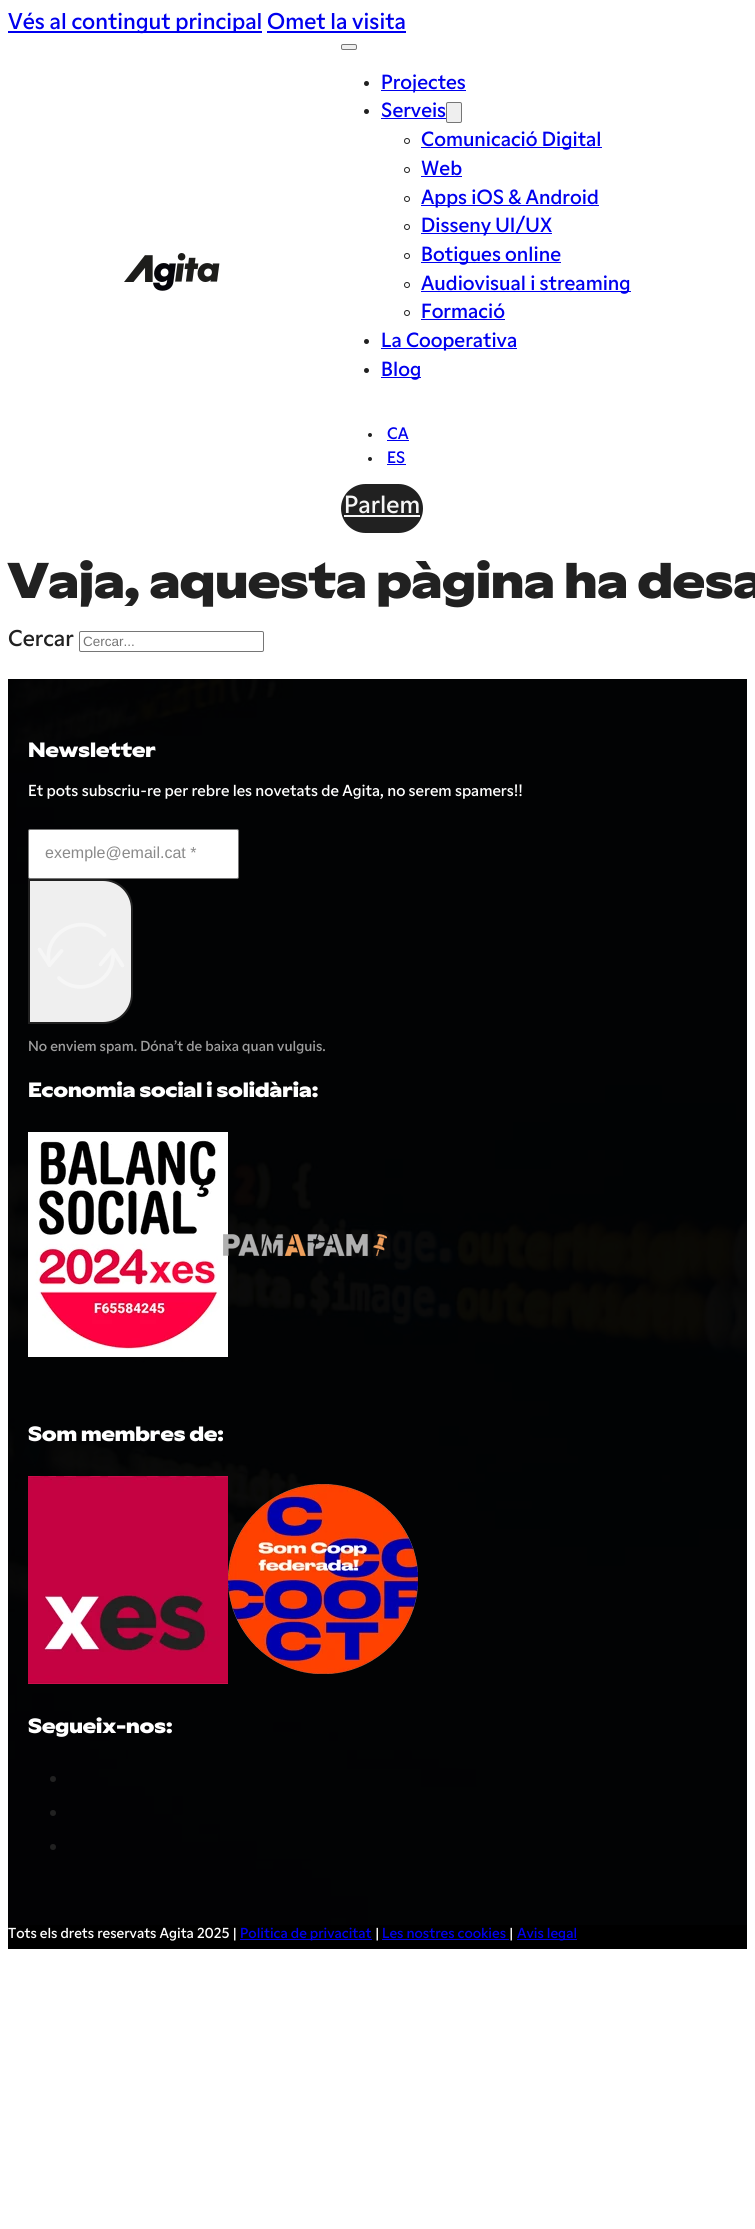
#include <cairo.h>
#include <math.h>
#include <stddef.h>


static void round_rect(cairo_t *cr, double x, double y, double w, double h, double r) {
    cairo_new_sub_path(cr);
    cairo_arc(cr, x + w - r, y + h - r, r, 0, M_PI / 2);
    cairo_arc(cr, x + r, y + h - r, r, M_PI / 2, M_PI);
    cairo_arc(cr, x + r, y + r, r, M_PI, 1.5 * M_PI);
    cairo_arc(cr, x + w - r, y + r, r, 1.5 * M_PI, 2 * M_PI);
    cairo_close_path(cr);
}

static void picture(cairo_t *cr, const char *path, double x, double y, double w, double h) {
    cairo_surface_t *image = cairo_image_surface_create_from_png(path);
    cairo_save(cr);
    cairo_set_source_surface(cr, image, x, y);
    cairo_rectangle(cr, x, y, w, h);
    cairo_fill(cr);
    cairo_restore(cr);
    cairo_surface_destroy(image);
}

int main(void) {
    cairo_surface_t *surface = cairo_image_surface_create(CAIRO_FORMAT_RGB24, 755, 2229);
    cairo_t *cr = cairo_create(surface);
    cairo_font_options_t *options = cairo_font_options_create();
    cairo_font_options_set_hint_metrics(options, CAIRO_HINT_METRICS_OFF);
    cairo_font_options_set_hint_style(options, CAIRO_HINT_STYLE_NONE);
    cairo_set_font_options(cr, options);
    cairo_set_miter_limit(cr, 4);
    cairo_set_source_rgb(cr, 1, 1, 1);
    cairo_paint(cr);
    cairo_set_source_rgb(cr, 0, 0, 0.933);
    cairo_rectangle(cr, 8, 31, 254, 2);
    cairo_fill(cr);
    cairo_select_font_face(cr, "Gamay", CAIRO_FONT_SLANT_NORMAL, CAIRO_FONT_WEIGHT_NORMAL);
    cairo_set_font_size(cr, 22);
    cairo_move_to(cr, 8, 29);
    cairo_show_text(cr, "Vés al contingut principal Omet la visita");
    cairo_rectangle(cr, 267, 31, 139, 2);
    cairo_fill(cr);
    picture(cr, "img1.png", 124, 253, 96, 38);
    cairo_set_source_rgb(cr, 0.937, 0.937, 0.937);
    round_rect(cr, 341.5, 44.5, 15, 5, 1.5);
    cairo_fill_preserve(cr);
    cairo_set_source_rgb(cr, 0.463, 0.463, 0.463);
    cairo_set_line_width(cr, 1);
    cairo_stroke(cr);
    cairo_set_source_rgb(cr, 0.129, 0.129, 0.129);
    cairo_arc(cr, 366.5, 83.5, 2.5, 0, 2 * M_PI);
    cairo_fill(cr);
    cairo_set_source_rgb(cr, 0, 0, 0.933);
    cairo_rectangle(cr, 381, 90, 85, 1);
    cairo_fill(cr);
    cairo_set_font_size(cr, 19.75);
    cairo_move_to(cr, 381, 89);
    cairo_show_text(cr, "Projectes");
    cairo_set_source_rgb(cr, 0.129, 0.129, 0.129);
    cairo_new_path(cr);
    cairo_arc(cr, 366.5, 111.5, 2.5, 0, 2 * M_PI);
    cairo_fill(cr);
    cairo_set_source_rgb(cr, 0, 0, 0.933);
    cairo_move_to(cr, 381, 117);
    cairo_show_text(cr, "Serveis");
    cairo_rectangle(cr, 381, 118, 65, 1);
    cairo_fill(cr);
    cairo_set_source_rgb(cr, 0.937, 0.937, 0.937);
    round_rect(cr, 446.5, 102.5, 15, 20, 1.5);
    cairo_fill_preserve(cr);
    cairo_set_source_rgb(cr, 0.463, 0.463, 0.463);
    cairo_stroke(cr);
    cairo_arc(cr, 407, 141, 2.5, 0, 2 * M_PI);
    cairo_set_source_rgb(cr, 0.129, 0.129, 0.129);
    cairo_stroke(cr);
    cairo_set_source_rgb(cr, 0, 0, 0.933);
    cairo_rectangle(cr, 421, 147, 181, 1);
    cairo_fill(cr);
    cairo_move_to(cr, 421, 146);
    cairo_show_text(cr, "Comunicació Digital");
    cairo_new_path(cr);
    cairo_arc(cr, 407, 170, 2.5, 0, 2 * M_PI);
    cairo_set_source_rgb(cr, 0.129, 0.129, 0.129);
    cairo_stroke(cr);
    cairo_set_source_rgb(cr, 0, 0, 0.933);
    cairo_move_to(cr, 421, 175);
    cairo_show_text(cr, "Web");
    cairo_rectangle(cr, 421, 176, 41, 1);
    cairo_fill(cr);
    cairo_arc(cr, 407, 199, 2.5, 0, 2 * M_PI);
    cairo_set_source_rgb(cr, 0.129, 0.129, 0.129);
    cairo_stroke(cr);
    cairo_set_source_rgb(cr, 0, 0, 0.933);
    cairo_rectangle(cr, 421, 205, 178, 1);
    cairo_fill(cr);
    cairo_move_to(cr, 421, 204);
    cairo_show_text(cr, "Apps iOS & Android");
    cairo_new_path(cr);
    cairo_arc(cr, 407, 227, 2.5, 0, 2 * M_PI);
    cairo_set_source_rgb(cr, 0.129, 0.129, 0.129);
    cairo_stroke(cr);
    cairo_set_source_rgb(cr, 0, 0, 0.933);
    cairo_rectangle(cr, 421, 233, 131, 1);
    cairo_fill(cr);
    cairo_move_to(cr, 421, 232);
    cairo_show_text(cr, "Disseny UI/UX");
    cairo_new_path(cr);
    cairo_arc(cr, 407, 256, 2.5, 0, 2 * M_PI);
    cairo_set_source_rgb(cr, 0.129, 0.129, 0.129);
    cairo_stroke(cr);
    cairo_set_source_rgb(cr, 0, 0, 0.933);
    cairo_rectangle(cr, 421, 262, 140, 1);
    cairo_fill(cr);
    cairo_move_to(cr, 421, 261);
    cairo_show_text(cr, "Botigues online");
    cairo_new_path(cr);
    cairo_arc(cr, 407, 285, 2.5, 0, 2 * M_PI);
    cairo_set_source_rgb(cr, 0.129, 0.129, 0.129);
    cairo_stroke(cr);
    cairo_set_source_rgb(cr, 0, 0, 0.933);
    cairo_rectangle(cr, 421, 291, 210, 1);
    cairo_fill(cr);
    cairo_move_to(cr, 421, 290);
    cairo_show_text(cr, "Audiovisual i streaming");
    cairo_new_path(cr);
    cairo_arc(cr, 407, 313, 2.5, 0, 2 * M_PI);
    cairo_set_source_rgb(cr, 0.129, 0.129, 0.129);
    cairo_stroke(cr);
    cairo_set_source_rgb(cr, 0, 0, 0.933);
    cairo_move_to(cr, 421, 318);
    cairo_show_text(cr, "Formació");
    cairo_rectangle(cr, 421, 319, 84, 1);
    cairo_fill(cr);
    cairo_set_source_rgb(cr, 0.129, 0.129, 0.129);
    cairo_arc(cr, 366.5, 341.5, 2.5, 0, 2 * M_PI);
    cairo_fill(cr);
    cairo_set_source_rgb(cr, 0, 0, 0.933);
    cairo_rectangle(cr, 381, 348, 136, 1);
    cairo_fill(cr);
    cairo_move_to(cr, 381, 347);
    cairo_show_text(cr, "La Cooperativa");
    cairo_set_source_rgb(cr, 0.129, 0.129, 0.129);
    cairo_new_path(cr);
    cairo_arc(cr, 366.5, 370.5, 2.5, 0, 2 * M_PI);
    cairo_fill(cr);
    cairo_set_source_rgb(cr, 0, 0, 0.933);
    cairo_rectangle(cr, 381, 377, 40, 1);
    cairo_fill(cr);
    cairo_move_to(cr, 381, 376);
    cairo_show_text(cr, "Blog");
    cairo_set_source_rgb(cr, 0.129, 0.129, 0.129);
    cairo_new_path(cr);
    cairo_arc(cr, 370, 435, 2, 0, 2 * M_PI);
    cairo_fill(cr);
    cairo_set_font_size(cr, 16);
    cairo_set_source_rgb(cr, 0, 0, 0.933);
    cairo_move_to(cr, 387, 439);
    cairo_show_text(cr, "CA");
    cairo_rectangle(cr, 387, 440, 22, 1);
    cairo_fill(cr);
    cairo_set_source_rgb(cr, 0.129, 0.129, 0.129);
    cairo_arc(cr, 370, 459, 2, 0, 2 * M_PI);
    cairo_fill(cr);
    cairo_set_source_rgb(cr, 0, 0, 0.933);
    cairo_move_to(cr, 387, 463);
    cairo_show_text(cr, "ES");
    cairo_rectangle(cr, 387, 464, 19, 1);
    cairo_fill(cr);
    cairo_set_source_rgb(cr, 0.129, 0.129, 0.129);
    round_rect(cr, 342.5, 485.5, 79, 46, 23);
    cairo_fill_preserve(cr);
    cairo_set_line_width(cr, 3);
    cairo_stroke(cr);
    cairo_set_font_size(cr, 24);
    cairo_set_source_rgb(cr, 0.961, 0.961, 0.961);
    cairo_move_to(cr, 344, 513);
    cairo_show_text(cr, "Parlem");
    cairo_rectangle(cr, 344, 515, 76, 2);
    cairo_fill(cr);
    cairo_select_font_face(cr, "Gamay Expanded", CAIRO_FONT_SLANT_NORMAL, CAIRO_FONT_WEIGHT_BOLD);
    cairo_set_font_size(cr, 48.4);
    cairo_set_source_rgb(cr, 0.129, 0.129, 0.129);
    cairo_move_to(cr, 8, 598);
    cairo_show_text(cr, "Vaja, aquesta pàgina ha desa");
    cairo_select_font_face(cr, "Gamay", CAIRO_FONT_SLANT_NORMAL, CAIRO_FONT_WEIGHT_NORMAL);
    cairo_set_font_size(cr, 22);
    cairo_move_to(cr, 8, 646);
    cairo_show_text(cr, "Cercar");
    round_rect(cr, 79.5, 631.5, 184, 20, 1.5);
    cairo_set_source_rgb(cr, 0.463, 0.463, 0.463);
    cairo_set_line_width(cr, 1);
    cairo_stroke(cr);
    cairo_select_font_face(cr, "Liberation Sans", CAIRO_FONT_SLANT_NORMAL, CAIRO_FONT_WEIGHT_NORMAL);
    cairo_set_font_size(cr, 13.5);
    cairo_set_source_rgb(cr, 0.459, 0.459, 0.459);
    cairo_move_to(cr, 83, 646);
    cairo_show_text(cr, "Cercar...");
    picture(cr, "img2.png", 8, 679, 739, 1246);
    cairo_select_font_face(cr, "Gamay Expanded", CAIRO_FONT_SLANT_NORMAL, CAIRO_FONT_WEIGHT_BOLD);
    cairo_set_font_size(cr, 20);
    cairo_set_source_rgb(cr, 1, 1, 1);
    cairo_move_to(cr, 28, 757);
    cairo_show_text(cr, "Newsletter");
    cairo_select_font_face(cr, "Gamay", CAIRO_FONT_SLANT_NORMAL, CAIRO_FONT_WEIGHT_NORMAL);
    cairo_set_font_size(cr, 15.4);
    cairo_move_to(cr, 28, 796);
    cairo_show_text(cr, "Et pots subscriu-re per rebre les novetats de Agita, no serem spamers!!");
    round_rect(cr, 28.5, 829.5, 210, 49, 1.5);
    cairo_fill_preserve(cr);
    cairo_set_source_rgb(cr, 0.463, 0.463, 0.463);
    cairo_stroke(cr);
    cairo_select_font_face(cr, "Liberation Sans", CAIRO_FONT_SLANT_NORMAL, CAIRO_FONT_WEIGHT_NORMAL);
    cairo_set_font_size(cr, 16);
    cairo_set_source_rgb(cr, 0.541, 0.541, 0.541);
    cairo_move_to(cr, 45, 858);
    cairo_show_text(cr, "exemple@email.cat *");
    cairo_set_source_rgb(cr, 0.937, 0.937, 0.937);
    cairo_new_path(cr);
    cairo_move_to(cr, 29, 880);
    cairo_line_to(cr, 103, 880);
    cairo_curve_to(cr, 119, 880, 132, 893, 132, 909);
    cairo_line_to(cr, 132, 994);
    cairo_curve_to(cr, 132, 1010, 119, 1023, 103, 1023);
    cairo_line_to(cr, 29, 1023);
    cairo_close_path(cr);
    cairo_fill_preserve(cr);
    cairo_set_source_rgb(cr, 0.129, 0.129, 0.129);
    cairo_set_line_width(cr, 2);
    cairo_stroke(cr);
    cairo_new_path(cr);
    cairo_move_to(cr, 39.5, 949.5);
    cairo_line_to(cr, 49.5, 965);
    cairo_line_to(cr, 61.5, 951);
    cairo_set_source_rgb(cr, 0.961, 0.961, 0.961);
    cairo_set_line_width(cr, 3.7);
    cairo_set_line_cap(cr, CAIRO_LINE_CAP_ROUND);
    cairo_set_line_join(cr, CAIRO_LINE_JOIN_ROUND);
    cairo_stroke(cr);
    cairo_new_path(cr);
    cairo_move_to(cr, 122.5, 965.5);
    cairo_line_to(cr, 112.5, 950);
    cairo_line_to(cr, 100.5, 964.5);
    cairo_stroke(cr);
    cairo_new_path(cr);
    cairo_move_to(cr, 112.5, 950.5);
    cairo_curve_to(cr, 118, 980, 80, 999, 59, 978);
    cairo_stroke(cr);
    cairo_new_path(cr);
    cairo_move_to(cr, 49.5, 965);
    cairo_curve_to(cr, 41, 933, 82.5, 910.5, 104.5, 935);
    cairo_stroke(cr);
    cairo_select_font_face(cr, "Gamay", CAIRO_FONT_SLANT_NORMAL, CAIRO_FONT_WEIGHT_NORMAL);
    cairo_set_font_size(cr, 14);
    cairo_set_source_rgb(cr, 0.62, 0.62, 0.62);
    cairo_move_to(cr, 28, 1051);
    cairo_show_text(cr, "No enviem spam. Dóna’t de baixa quan vulguis.");
    cairo_select_font_face(cr, "Gamay Expanded", CAIRO_FONT_SLANT_NORMAL, CAIRO_FONT_WEIGHT_BOLD);
    cairo_set_font_size(cr, 20);
    cairo_set_source_rgb(cr, 1, 1, 1);
    cairo_move_to(cr, 28, 1097);
    cairo_show_text(cr, "Economia social i solidària:");
    picture(cr, "img3.png", 28, 1132, 200, 225);
    picture(cr, "img4.png", 223, 1234, 164, 22);
    cairo_move_to(cr, 28, 1441);
    cairo_show_text(cr, "Som membres de:");
    picture(cr, "img5.png", 28, 1476, 200, 208);
    picture(cr, "img6.png", 228, 1484, 190, 190);
    cairo_move_to(cr, 28, 1733);
    cairo_show_text(cr, "Segueix-nos:");
    cairo_set_source_rgb(cr, 0.129, 0.129, 0.129);
    cairo_new_path(cr);
    cairo_arc(cr, 53, 1779, 3, 0, 2 * M_PI);
    cairo_fill(cr);
    cairo_arc(cr, 53, 1813, 3, 0, 2 * M_PI);
    cairo_fill(cr);
    cairo_arc(cr, 53, 1847, 3, 0, 2 * M_PI);
    cairo_fill(cr);
    cairo_set_source_rgb(cr, 0, 0, 0);
    cairo_rectangle(cr, 8, 1925, 739, 24);
    cairo_fill(cr);
    cairo_select_font_face(cr, "Gamay", CAIRO_FONT_SLANT_NORMAL, CAIRO_FONT_WEIGHT_NORMAL);
    cairo_set_font_size(cr, 14);
    cairo_set_source_rgb(cr, 1, 1, 1);
    cairo_move_to(cr, 8, 1938);
    cairo_show_text(cr, "Tots els drets reservats Agita 2025 |");
    cairo_set_source_rgb(cr, 0, 0, 0.933);
    cairo_rectangle(cr, 240, 1939, 132, 1);
    cairo_fill(cr);
    cairo_move_to(cr, 240, 1938);
    cairo_show_text(cr, "Politica de privacitat");
    cairo_set_source_rgb(cr, 1, 1, 1);
    cairo_move_to(cr, 375, 1938);
    cairo_show_text(cr, "|");
    cairo_set_source_rgb(cr, 0, 0, 0.933);
    cairo_move_to(cr, 382, 1938);
    cairo_show_text(cr, "Les nostres cookies");
    cairo_rectangle(cr, 382, 1939, 127, 1);
    cairo_fill(cr);
    cairo_set_source_rgb(cr, 1, 1, 1);
    cairo_move_to(cr, 509, 1938);
    cairo_show_text(cr, "|");
    cairo_set_source_rgb(cr, 0, 0, 0.933);
    cairo_rectangle(cr, 517, 1939, 60, 1);
    cairo_fill(cr);
    cairo_move_to(cr, 517, 1938);
    cairo_show_text(cr, "Avis legal");
    cairo_surface_write_to_png(surface, "page.png");
    cairo_font_options_destroy(options);
    cairo_destroy(cr);
    cairo_surface_destroy(surface);
    return 0;
}
